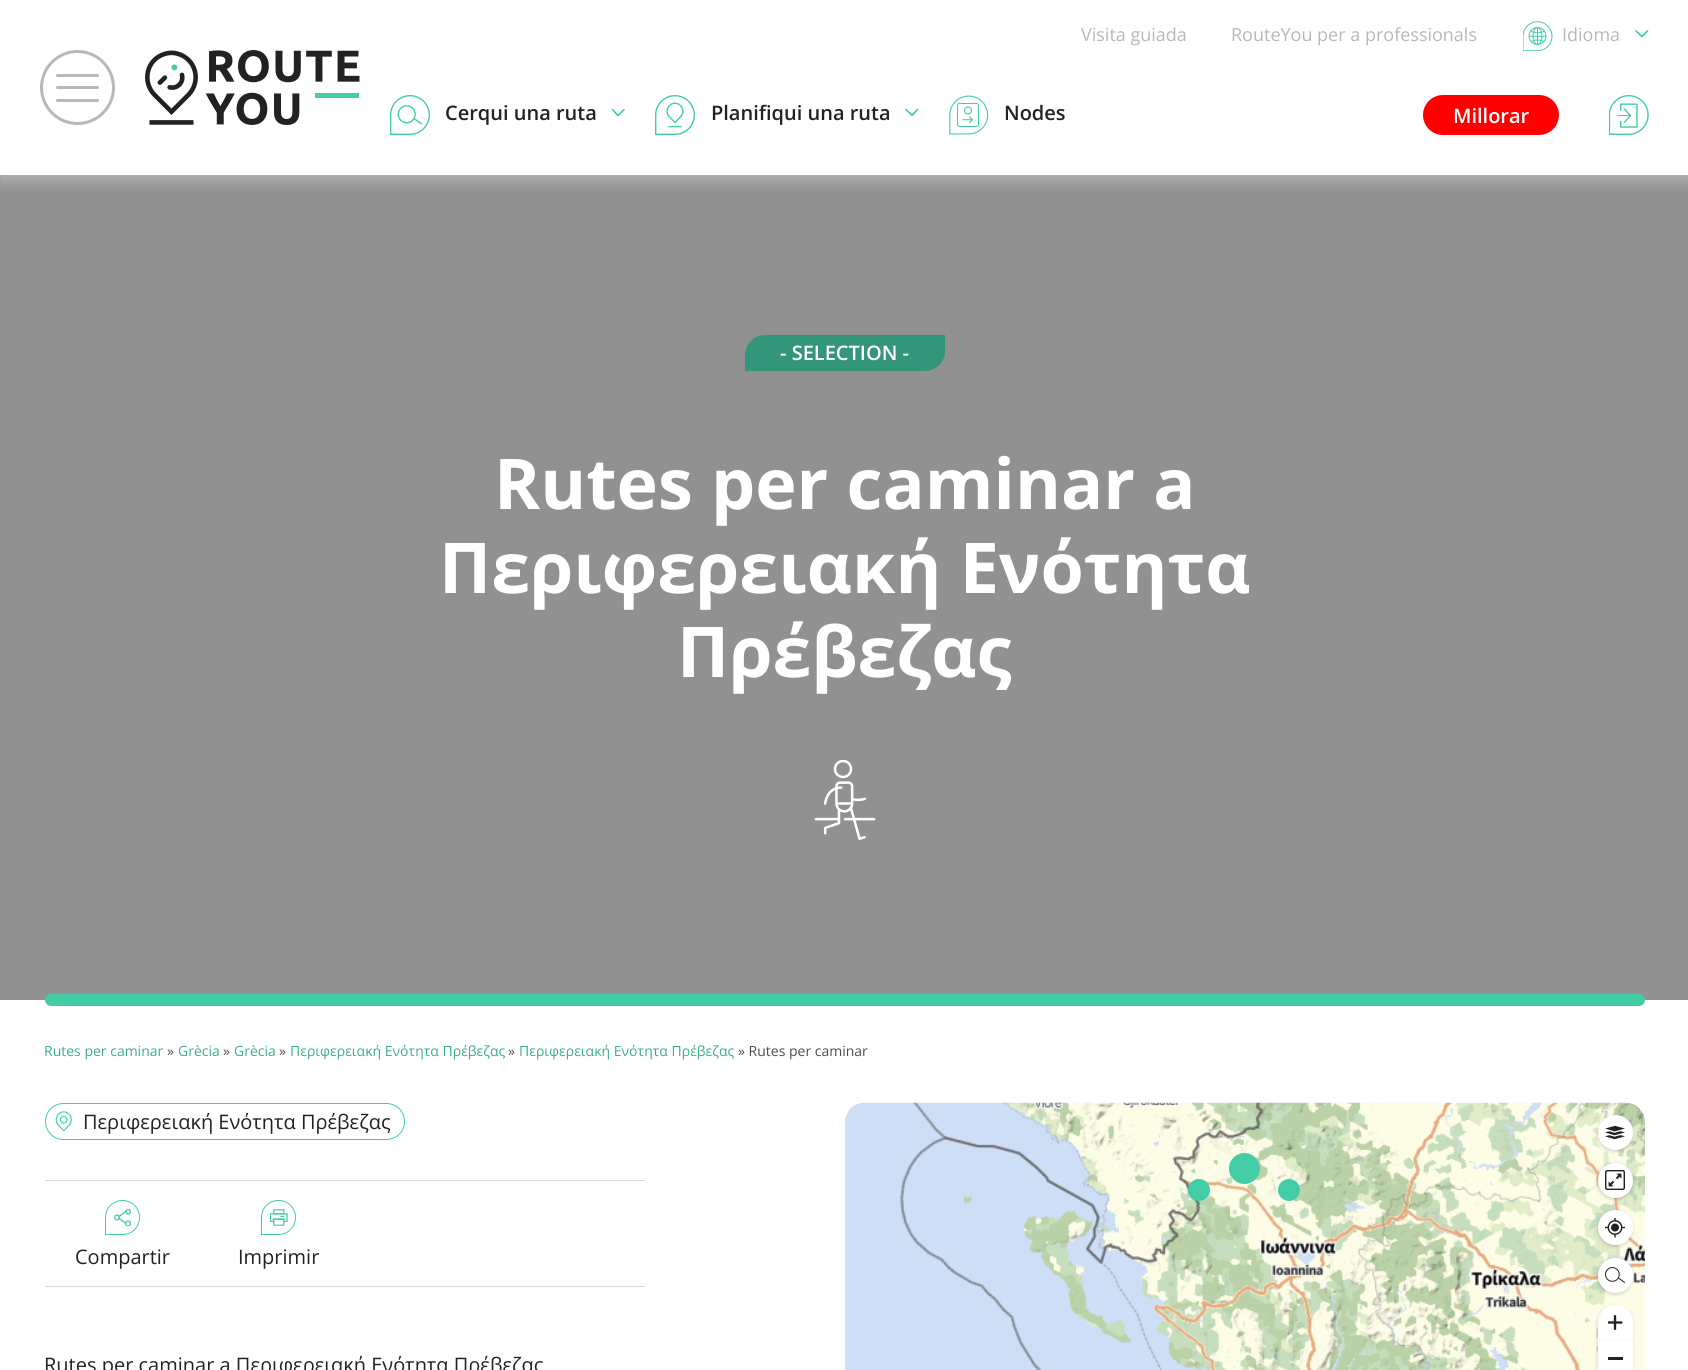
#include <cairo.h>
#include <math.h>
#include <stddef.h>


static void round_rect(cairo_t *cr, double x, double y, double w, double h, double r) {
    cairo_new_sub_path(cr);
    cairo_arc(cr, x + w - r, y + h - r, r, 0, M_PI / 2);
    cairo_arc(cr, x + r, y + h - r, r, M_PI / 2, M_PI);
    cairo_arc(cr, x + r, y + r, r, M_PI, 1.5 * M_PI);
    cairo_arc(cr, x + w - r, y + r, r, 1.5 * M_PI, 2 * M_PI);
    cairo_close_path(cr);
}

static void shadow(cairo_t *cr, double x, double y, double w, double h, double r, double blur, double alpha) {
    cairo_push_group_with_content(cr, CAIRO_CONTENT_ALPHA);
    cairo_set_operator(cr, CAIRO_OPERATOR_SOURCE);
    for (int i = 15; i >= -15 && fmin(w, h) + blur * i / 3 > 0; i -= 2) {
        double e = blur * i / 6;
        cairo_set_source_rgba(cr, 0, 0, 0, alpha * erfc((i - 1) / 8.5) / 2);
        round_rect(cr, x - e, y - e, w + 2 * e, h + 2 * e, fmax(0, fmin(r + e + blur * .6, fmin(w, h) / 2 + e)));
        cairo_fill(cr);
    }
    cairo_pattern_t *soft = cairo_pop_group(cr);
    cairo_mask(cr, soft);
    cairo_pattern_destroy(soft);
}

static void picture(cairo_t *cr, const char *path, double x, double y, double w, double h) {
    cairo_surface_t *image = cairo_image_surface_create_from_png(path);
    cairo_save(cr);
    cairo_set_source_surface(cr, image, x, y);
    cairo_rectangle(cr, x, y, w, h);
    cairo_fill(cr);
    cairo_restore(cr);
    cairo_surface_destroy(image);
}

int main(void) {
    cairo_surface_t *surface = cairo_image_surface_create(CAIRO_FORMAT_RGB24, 1688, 1370);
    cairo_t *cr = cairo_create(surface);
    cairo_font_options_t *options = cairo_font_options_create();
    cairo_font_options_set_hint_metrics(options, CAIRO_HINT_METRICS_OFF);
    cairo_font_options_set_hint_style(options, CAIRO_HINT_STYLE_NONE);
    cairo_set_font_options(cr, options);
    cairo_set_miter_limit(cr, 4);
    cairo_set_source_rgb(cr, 1, 1, 1);
    cairo_paint(cr);
    cairo_set_source_rgb(cr, 0.569, 0.569, 0.569);
    cairo_rectangle(cr, 0, 175, 1688, 825);
    cairo_fill(cr);
    cairo_save(cr);
    cairo_rectangle(cr, 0, 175, 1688, 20);
    cairo_clip(cr);
    cairo_set_source_rgb(cr, 0.722, 0.722, 0.722);
    shadow(cr, 0, 5, 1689, 175, 0, 7.5, 1);
    cairo_restore(cr);
    cairo_select_font_face(cr, "Open Sans", CAIRO_FONT_SLANT_NORMAL, CAIRO_FONT_WEIGHT_NORMAL);
    cairo_set_font_size(cr, 18);
    cairo_set_source_rgb(cr, 0.722, 0.722, 0.722);
    cairo_move_to(cr, 1081, 41);
    cairo_show_text(cr, "Visita guiada");
    cairo_move_to(cr, 1231, 41);
    cairo_show_text(cr, "RouteYou per a professionals");
    picture(cr, "img1.png", 1523, 21, 30, 30);
    cairo_move_to(cr, 1562, 41);
    cairo_show_text(cr, "Idioma");
    cairo_new_path(cr);
    cairo_move_to(cr, 1647.5, 31);
    cairo_line_to(cr, 1642, 36.5);
    cairo_line_to(cr, 1636, 31);
    cairo_set_source_rgb(cr, 0.259, 0.804, 0.655);
    cairo_set_line_width(cr, 1.7);
    cairo_set_line_cap(cr, CAIRO_LINE_CAP_ROUND);
    cairo_set_line_join(cr, CAIRO_LINE_JOIN_ROUND);
    cairo_stroke(cr);
    cairo_arc(cr, 77.5, 87.5, 36, 0, 2 * M_PI);
    cairo_set_source_rgb(cr, 0.722, 0.722, 0.722);
    cairo_set_line_width(cr, 3);
    cairo_set_line_cap(cr, CAIRO_LINE_CAP_BUTT);
    cairo_set_line_join(cr, CAIRO_LINE_JOIN_MITER);
    cairo_stroke(cr);
    round_rect(cr, 56, 74, 43, 3, 1.5);
    cairo_fill(cr);
    round_rect(cr, 56, 86, 43, 3, 1.5);
    cairo_fill(cr);
    round_rect(cr, 56, 99, 43, 3, 1.5);
    cairo_fill(cr);
    picture(cr, "img2.png", 145, 50, 215, 75);
    picture(cr, "img3.png", 390, 95, 40, 40);
    cairo_select_font_face(cr, "Open Sans SemiBold", CAIRO_FONT_SLANT_NORMAL, CAIRO_FONT_WEIGHT_NORMAL);
    cairo_set_font_size(cr, 20);
    cairo_set_source_rgb(cr, 0.133, 0.133, 0.133);
    cairo_move_to(cr, 445, 120);
    cairo_show_text(cr, "Cerqui una ruta");
    cairo_save(cr);
    cairo_rectangle(cr, 611, 109, 14, 7);
    cairo_clip(cr);
    cairo_new_path(cr);
    cairo_move_to(cr, 624, 109.5);
    cairo_line_to(cr, 618, 115.5);
    cairo_line_to(cr, 612.5, 109.5);
    cairo_set_source_rgb(cr, 0.259, 0.804, 0.655);
    cairo_set_line_width(cr, 1.7);
    cairo_set_line_cap(cr, CAIRO_LINE_CAP_ROUND);
    cairo_set_line_join(cr, CAIRO_LINE_JOIN_ROUND);
    cairo_stroke(cr);
    cairo_restore(cr);
    picture(cr, "img4.png", 655, 95, 40, 40);
    cairo_move_to(cr, 711, 120);
    cairo_show_text(cr, "Planifiqui una ruta");
    cairo_save(cr);
    cairo_rectangle(cr, 905, 109, 14, 7);
    cairo_clip(cr);
    cairo_new_path(cr);
    cairo_move_to(cr, 917.5, 109.5);
    cairo_line_to(cr, 912, 115.5);
    cairo_line_to(cr, 906, 109.5);
    cairo_set_source_rgb(cr, 0.259, 0.804, 0.655);
    cairo_set_line_width(cr, 1.7);
    cairo_set_line_cap(cr, CAIRO_LINE_CAP_ROUND);
    cairo_set_line_join(cr, CAIRO_LINE_JOIN_ROUND);
    cairo_stroke(cr);
    cairo_restore(cr);
    picture(cr, "img5.png", 949, 95, 40, 40);
    cairo_move_to(cr, 1004, 120);
    cairo_show_text(cr, "Nodes");
    cairo_set_source_rgb(cr, 1, 0, 0);
    round_rect(cr, 1423, 95, 136, 40, 20);
    cairo_fill(cr);
    cairo_set_source_rgb(cr, 1, 1, 1);
    cairo_move_to(cr, 1453, 123);
    cairo_show_text(cr, "Millorar");
    picture(cr, "img6.png", 1609, 95, 40, 40);
    cairo_set_source_rgb(cr, 0.2, 0.584, 0.478);
    cairo_new_path(cr);
    cairo_move_to(cr, 765, 335);
    cairo_line_to(cr, 945, 335);
    cairo_line_to(cr, 945, 351);
    cairo_curve_to(cr, 945, 362, 936, 371, 925, 371);
    cairo_line_to(cr, 745, 371);
    cairo_line_to(cr, 745, 355);
    cairo_curve_to(cr, 745, 344, 754, 335, 765, 335);
    cairo_close_path(cr);
    cairo_fill(cr);
    cairo_set_source_rgb(cr, 1, 1, 1);
    cairo_move_to(cr, 780, 360);
    cairo_show_text(cr, "- SELECTION -");
    cairo_select_font_face(cr, "Open Sans", CAIRO_FONT_SLANT_NORMAL, CAIRO_FONT_WEIGHT_BOLD);
    cairo_set_font_size(cr, 70);
    cairo_move_to(cr, 494, 509);
    cairo_show_text(cr, "Rutes per caminar a");
    cairo_move_to(cr, 439, 593);
    cairo_show_text(cr, "Περιφερειακή Ενότητα");
    cairo_move_to(cr, 677, 677);
    cairo_show_text(cr, "Πρέβεζας");
    picture(cr, "img7.png", 814, 760, 62, 80);
    cairo_set_source_rgb(cr, 0.259, 0.804, 0.655);
    round_rect(cr, 45, 994, 1600, 12, 6);
    cairo_fill(cr);
    cairo_select_font_face(cr, "Open Sans", CAIRO_FONT_SLANT_NORMAL, CAIRO_FONT_WEIGHT_NORMAL);
    cairo_set_font_size(cr, 14);
    cairo_set_source_rgb(cr, 0.22, 0.682, 0.557);
    cairo_move_to(cr, 44, 1056);
    cairo_show_text(cr, "Rutes per caminar");
    cairo_set_source_rgb(cr, 0.302, 0.302, 0.302);
    cairo_move_to(cr, 167, 1056);
    cairo_show_text(cr, "»");
    cairo_set_source_rgb(cr, 0.22, 0.682, 0.557);
    cairo_move_to(cr, 178, 1056);
    cairo_show_text(cr, "Grècia");
    cairo_set_source_rgb(cr, 0.302, 0.302, 0.302);
    cairo_move_to(cr, 223, 1056);
    cairo_show_text(cr, "»");
    cairo_set_source_rgb(cr, 0.22, 0.682, 0.557);
    cairo_move_to(cr, 234, 1056);
    cairo_show_text(cr, "Grècia");
    cairo_set_source_rgb(cr, 0.302, 0.302, 0.302);
    cairo_move_to(cr, 279, 1056);
    cairo_show_text(cr, "»");
    cairo_set_source_rgb(cr, 0.22, 0.682, 0.557);
    cairo_move_to(cr, 290, 1056);
    cairo_show_text(cr, "Περιφερειακή Ενότητα Πρέβεζας");
    cairo_set_source_rgb(cr, 0.302, 0.302, 0.302);
    cairo_move_to(cr, 508, 1056);
    cairo_show_text(cr, "»");
    cairo_set_source_rgb(cr, 0.22, 0.682, 0.557);
    cairo_move_to(cr, 519, 1056);
    cairo_show_text(cr, "Περιφερειακή Ενότητα Πρέβεζας");
    cairo_set_source_rgb(cr, 0.302, 0.302, 0.302);
    cairo_move_to(cr, 738, 1056);
    cairo_show_text(cr, "» Rutes per caminar");
    round_rect(cr, 45.5, 1103.5, 359, 36, 18);
    cairo_set_source_rgb(cr, 0.259, 0.804, 0.655);
    cairo_set_line_width(cr, 1);
    cairo_stroke(cr);
    picture(cr, "img8.png", 55, 1111, 17, 20);
    cairo_set_font_size(cr, 20);
    cairo_set_source_rgb(cr, 0.133, 0.133, 0.133);
    cairo_move_to(cr, 83, 1129);
    cairo_show_text(cr, "Περιφερειακή Ενότητα Πρέβεζας");
    cairo_set_source_rgb(cr, 0.851, 0.851, 0.851);
    cairo_rectangle(cr, 45, 1180, 600, 1);
    cairo_fill(cr);
    cairo_rectangle(cr, 45, 1286, 600, 1);
    cairo_fill(cr);
    cairo_new_path(cr);
    cairo_move_to(cr, 122.5, 1200.5);
    cairo_curve_to(cr, 132, 1200.5, 139.5, 1208, 139.5, 1217.5);
    cairo_curve_to(cr, 139.5, 1227, 132, 1234.5, 122.5, 1234.5);
    cairo_line_to(cr, 105.5, 1234.5);
    cairo_line_to(cr, 105.5, 1217.5);
    cairo_curve_to(cr, 105.5, 1208, 113, 1200.5, 122.5, 1200.5);
    cairo_close_path(cr);
    cairo_set_source_rgb(cr, 0.259, 0.804, 0.655);
    cairo_stroke(cr);
    picture(cr, "img9.png", 114, 1209, 17, 17);
    cairo_set_source_rgb(cr, 0.133, 0.133, 0.133);
    cairo_move_to(cr, 75, 1264);
    cairo_show_text(cr, "Compartir");
    cairo_new_path(cr);
    cairo_move_to(cr, 278.5, 1200.5);
    cairo_curve_to(cr, 288, 1200.5, 295.5, 1208, 295.5, 1217.5);
    cairo_curve_to(cr, 295.5, 1227, 288, 1234.5, 278.5, 1234.5);
    cairo_line_to(cr, 261.5, 1234.5);
    cairo_line_to(cr, 261.5, 1217.5);
    cairo_curve_to(cr, 261.5, 1208, 269, 1200.5, 278.5, 1200.5);
    cairo_close_path(cr);
    cairo_set_source_rgb(cr, 0.259, 0.804, 0.655);
    cairo_stroke(cr);
    picture(cr, "img10.png", 270, 1209, 18, 17);
    cairo_set_source_rgb(cr, 0.133, 0.133, 0.133);
    cairo_move_to(cr, 238, 1264);
    cairo_show_text(cr, "Imprimir");
    cairo_move_to(cr, 44, 1372);
    cairo_show_text(cr, "Rutes per caminar a Περιφερειακή Ενότητα Πρέβεζας");
    picture(cr, "img11.png", 845, 1102, 800, 268);
    cairo_set_source_rgb(cr, 0, 0, 0);
    shadow(cr, 1599, 1118, 32, 32, 16, 2.5, 0.3);
    cairo_set_source_rgb(cr, 1, 1, 1);
    cairo_arc(cr, 1615.5, 1132.5, 17.5, 0, 2 * M_PI);
    cairo_fill(cr);
    picture(cr, "img12.png", 1605, 1125, 20, 15);
    cairo_set_source_rgb(cr, 0.259, 0.804, 0.655);
    cairo_arc(cr, 1199, 1190, 11, 0, 2 * M_PI);
    cairo_fill(cr);
    cairo_arc(cr, 1289, 1190, 11, 0, 2 * M_PI);
    cairo_fill(cr);
    cairo_arc(cr, 1244.5, 1168.5, 15.5, 0, 2 * M_PI);
    cairo_fill(cr);
    cairo_set_source_rgb(cr, 0, 0, 0);
    shadow(cr, 1599, 1165, 32, 33, 16, 2.5, 0.3);
    cairo_set_source_rgb(cr, 1, 1, 1);
    cairo_arc(cr, 1615.5, 1180.5, 17.5, 0, 2 * M_PI);
    cairo_fill(cr);
    picture(cr, "img13.png", 1605, 1170, 20, 20);
    cairo_set_source_rgb(cr, 0, 0, 0);
    shadow(cr, 1599, 1213, 32, 32, 16, 2.5, 0.3);
    cairo_set_source_rgb(cr, 1, 1, 1);
    cairo_arc(cr, 1615.5, 1227.5, 17.5, 0, 2 * M_PI);
    cairo_fill(cr);
    picture(cr, "img14.png", 1605, 1218, 20, 20);
    cairo_set_source_rgb(cr, 0, 0, 0);
    shadow(cr, 1599, 1260, 32, 33, 16, 2.5, 0.3);
    cairo_set_source_rgb(cr, 1, 1, 1);
    cairo_arc(cr, 1615.5, 1275.5, 17.5, 0, 2 * M_PI);
    cairo_fill(cr);
    picture(cr, "img15.png", 1605, 1267, 20, 16);
    cairo_set_source_rgb(cr, 0, 0, 0);
    shadow(cr, 1599, 1308, 32, 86, 16, 2.5, 0.3);
    cairo_set_source_rgb(cr, 1, 1, 1);
    round_rect(cr, 1598, 1305, 35, 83, 17.5);
    cairo_fill(cr);
    picture(cr, "img16.png", 1608, 1315, 15, 15);
    cairo_set_source_rgb(cr, 0.965, 0.965, 0.965);
    cairo_rectangle(cr, 1598, 1340, 35, 1);
    cairo_fill(cr);
    cairo_set_source_rgb(cr, 0.133, 0.133, 0.133);
    cairo_rectangle(cr, 1608, 1357, 15, 3);
    cairo_fill(cr);
    cairo_surface_write_to_png(surface, "page.png");
    cairo_font_options_destroy(options);
    cairo_destroy(cr);
    cairo_surface_destroy(surface);
    return 0;
}
